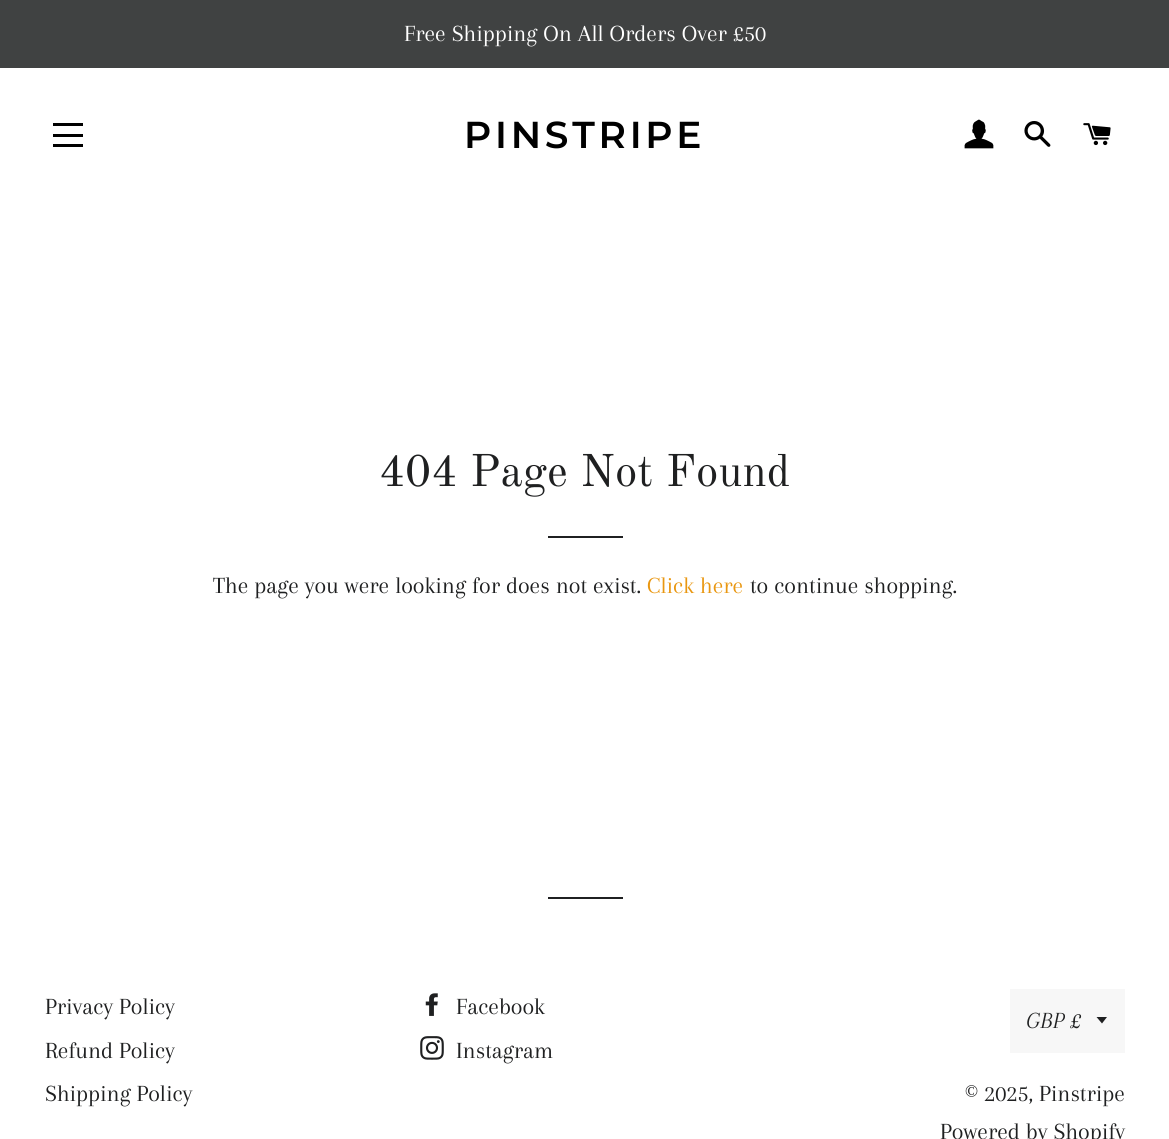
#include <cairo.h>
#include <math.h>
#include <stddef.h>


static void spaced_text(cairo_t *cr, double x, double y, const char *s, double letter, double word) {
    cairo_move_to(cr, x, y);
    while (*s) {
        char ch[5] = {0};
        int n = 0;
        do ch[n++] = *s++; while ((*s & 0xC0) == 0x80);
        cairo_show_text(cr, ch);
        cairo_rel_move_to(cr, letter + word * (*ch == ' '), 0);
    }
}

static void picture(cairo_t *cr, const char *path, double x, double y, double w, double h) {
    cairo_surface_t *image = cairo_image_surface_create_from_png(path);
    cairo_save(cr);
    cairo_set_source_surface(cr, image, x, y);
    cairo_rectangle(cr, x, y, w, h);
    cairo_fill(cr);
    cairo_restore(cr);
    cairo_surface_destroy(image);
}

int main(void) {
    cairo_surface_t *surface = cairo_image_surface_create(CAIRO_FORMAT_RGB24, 1169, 1139);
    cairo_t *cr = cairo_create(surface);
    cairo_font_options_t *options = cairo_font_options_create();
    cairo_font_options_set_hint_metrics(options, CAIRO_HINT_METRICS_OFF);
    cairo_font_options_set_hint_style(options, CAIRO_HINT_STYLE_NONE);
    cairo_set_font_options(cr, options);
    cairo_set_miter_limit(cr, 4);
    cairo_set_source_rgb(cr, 1, 1, 1);
    cairo_paint(cr);
    cairo_set_source_rgb(cr, 0.251, 0.259, 0.259);
    cairo_rectangle(cr, 0, 0, 1169, 68);
    cairo_fill(cr);
    cairo_select_font_face(cr, "Arapey", CAIRO_FONT_SLANT_NORMAL, CAIRO_FONT_WEIGHT_NORMAL);
    cairo_set_font_size(cr, 24);
    cairo_set_source_rgb(cr, 1, 1, 1);
    cairo_move_to(cr, 404, 41);
    cairo_show_text(cr, "Free Shipping On All Orders Over £50");
    cairo_set_source_rgb(cr, 0, 0, 0);
    cairo_rectangle(cr, 53, 123, 30, 3);
    cairo_fill(cr);
    cairo_rectangle(cr, 53, 134, 30, 3);
    cairo_fill(cr);
    cairo_rectangle(cr, 53, 144, 30, 3);
    cairo_fill(cr);
    cairo_select_font_face(cr, "Montserrat SemiBold", CAIRO_FONT_SLANT_NORMAL, CAIRO_FONT_WEIGHT_NORMAL);
    cairo_set_font_size(cr, 37.5);
    spaced_text(cr, 464, 148, "PINSTRIPE", 3.75, 0);
    picture(cr, "img1.png", 964, 119, 30, 30);
    picture(cr, "img2.png", 1024, 121, 27, 26);
    picture(cr, "img3.png", 1083, 123, 28, 23);
    cairo_select_font_face(cr, "Old Standard TT", CAIRO_FONT_SLANT_NORMAL, CAIRO_FONT_WEIGHT_NORMAL);
    cairo_set_font_size(cr, 45);
    cairo_set_source_rgb(cr, 0.122, 0.125, 0.129);
    cairo_move_to(cr, 379, 486);
    cairo_show_text(cr, "404 Page Not Found");
    cairo_rectangle(cr, 548, 536, 75, 2);
    cairo_fill(cr);
    cairo_select_font_face(cr, "Arapey", CAIRO_FONT_SLANT_NORMAL, CAIRO_FONT_WEIGHT_NORMAL);
    cairo_set_font_size(cr, 24);
    cairo_move_to(cr, 213, 593);
    cairo_show_text(cr, "The page you were looking for does not exist.");
    cairo_set_source_rgb(cr, 0.914, 0.592, 0.067);
    cairo_move_to(cr, 647, 593);
    cairo_show_text(cr, "Click here");
    cairo_set_source_rgb(cr, 0.122, 0.125, 0.129);
    cairo_move_to(cr, 750, 593);
    cairo_show_text(cr, "to continue shopping.");
    cairo_rectangle(cr, 548, 897, 75, 2);
    cairo_fill(cr);
    cairo_move_to(cr, 45, 1014);
    cairo_show_text(cr, "Privacy Policy");
    cairo_move_to(cr, 45, 1058);
    cairo_show_text(cr, "Refund Policy");
    cairo_move_to(cr, 45, 1101);
    cairo_show_text(cr, "Shipping Policy");
    picture(cr, "img4.png", 425, 993, 13, 23);
    cairo_move_to(cr, 456, 1014);
    cairo_show_text(cr, "Facebook");
    picture(cr, "img5.png", 420, 1036, 24, 24);
    cairo_move_to(cr, 456, 1058);
    cairo_show_text(cr, "Instagram");
    cairo_set_source_rgb(cr, 0.965, 0.965, 0.965);
    cairo_rectangle(cr, 1010, 989, 115, 64);
    cairo_fill(cr);
    cairo_set_source_rgb(cr, 0.122, 0.125, 0.129);
    cairo_new_path(cr);
    cairo_move_to(cr, 1096.5, 1017);
    cairo_line_to(cr, 1102, 1023.5);
    cairo_line_to(cr, 1107, 1017);
    cairo_close_path(cr);
    cairo_fill(cr);
    cairo_select_font_face(cr, "Arapey", CAIRO_FONT_SLANT_ITALIC, CAIRO_FONT_WEIGHT_NORMAL);
    cairo_move_to(cr, 1026, 1028);
    cairo_show_text(cr, "GBP £");
    cairo_select_font_face(cr, "Arapey", CAIRO_FONT_SLANT_NORMAL, CAIRO_FONT_WEIGHT_NORMAL);
    cairo_move_to(cr, 965, 1101);
    cairo_show_text(cr, "© 2025, Pinstripe");
    cairo_move_to(cr, 940, 1139);
    cairo_show_text(cr, "Powered by Shopify");
    cairo_surface_write_to_png(surface, "page.png");
    cairo_font_options_destroy(options);
    cairo_destroy(cr);
    cairo_surface_destroy(surface);
    return 0;
}
